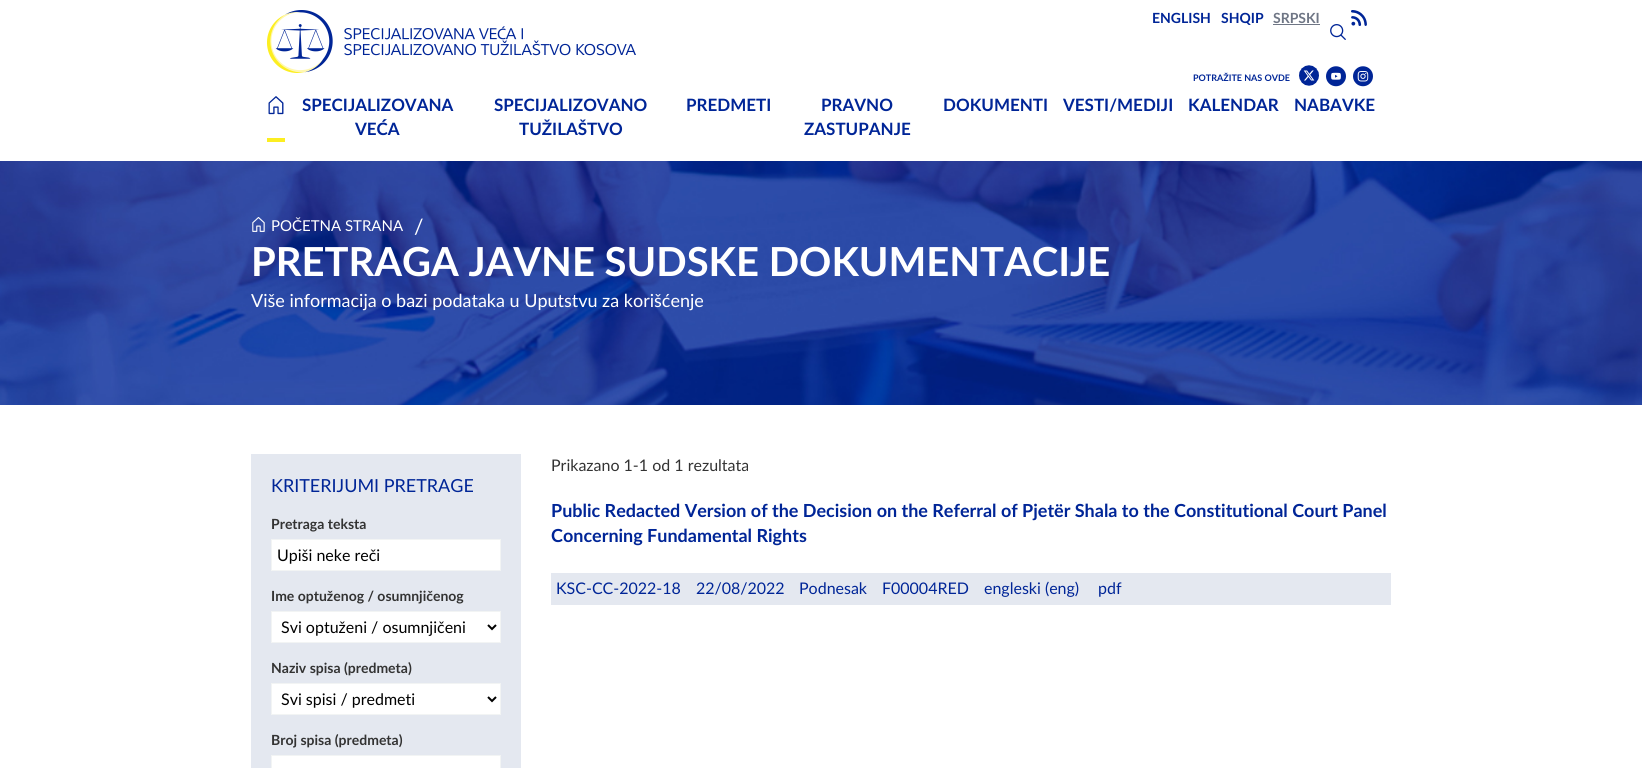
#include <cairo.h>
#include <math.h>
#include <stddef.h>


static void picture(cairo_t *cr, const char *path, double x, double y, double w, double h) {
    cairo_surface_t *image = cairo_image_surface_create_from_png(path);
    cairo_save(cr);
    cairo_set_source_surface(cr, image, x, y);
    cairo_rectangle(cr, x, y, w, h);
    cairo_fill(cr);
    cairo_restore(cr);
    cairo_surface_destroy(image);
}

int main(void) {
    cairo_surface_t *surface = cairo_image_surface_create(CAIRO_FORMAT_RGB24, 1642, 768);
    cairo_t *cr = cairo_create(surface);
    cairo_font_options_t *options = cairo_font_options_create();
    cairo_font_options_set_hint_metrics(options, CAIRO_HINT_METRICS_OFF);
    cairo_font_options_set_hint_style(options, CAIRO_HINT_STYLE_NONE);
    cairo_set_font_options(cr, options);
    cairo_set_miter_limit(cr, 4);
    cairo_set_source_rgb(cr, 1, 1, 1);
    cairo_paint(cr);
    picture(cr, "img1.png", 267, 10, 369, 63);
    cairo_select_font_face(cr, "Lato", CAIRO_FONT_SLANT_NORMAL, CAIRO_FONT_WEIGHT_BOLD);
    cairo_set_font_size(cr, 14);
    cairo_set_source_rgb(cr, 0, 0.145, 0.592);
    cairo_move_to(cr, 1152, 23);
    cairo_show_text(cr, "ENGLISH");
    cairo_move_to(cr, 1221, 23);
    cairo_show_text(cr, "SHQIP");
    cairo_set_source_rgb(cr, 0.435, 0.463, 0.522);
    cairo_move_to(cr, 1273, 23);
    cairo_show_text(cr, "SRPSKI");
    cairo_rectangle(cr, 1273, 24, 47, 1);
    cairo_fill(cr);
    picture(cr, "img2.png", 1351, 10, 16, 16);
    picture(cr, "img3.png", 1330, 24, 16, 16);
    cairo_set_font_size(cr, 9);
    cairo_set_source_rgb(cr, 0, 0.145, 0.592);
    cairo_move_to(cr, 1193, 81);
    cairo_show_text(cr, "POTRAŽITE NAS OVDE");
    picture(cr, "img4.png", 1299, 65, 20, 21);
    picture(cr, "img5.png", 1326, 66, 20, 21);
    picture(cr, "img6.png", 1353, 66, 20, 21);
    cairo_set_source_rgb(cr, 0.988, 0.933, 0.129);
    cairo_rectangle(cr, 267, 138, 18, 4);
    cairo_fill(cr);
    picture(cr, "img7.png", 268, 96, 16, 19);
    cairo_set_font_size(cr, 17);
    cairo_set_source_rgb(cr, 0, 0.145, 0.592);
    cairo_move_to(cr, 302, 111);
    cairo_show_text(cr, "SPECIJALIZOVANA");
    cairo_move_to(cr, 355, 135);
    cairo_show_text(cr, "VEĆA");
    cairo_move_to(cr, 494, 111);
    cairo_show_text(cr, "SPECIJALIZOVANO");
    cairo_move_to(cr, 519, 135);
    cairo_show_text(cr, "TUŽILAŠTVO");
    cairo_move_to(cr, 686, 111);
    cairo_show_text(cr, "PREDMETI");
    cairo_move_to(cr, 821, 111);
    cairo_show_text(cr, "PRAVNO");
    cairo_move_to(cr, 804, 135);
    cairo_show_text(cr, "ZASTUPANJE");
    cairo_move_to(cr, 943, 111);
    cairo_show_text(cr, "DOKUMENTI");
    cairo_move_to(cr, 1063, 111);
    cairo_show_text(cr, "VESTI/MEDIJI");
    cairo_move_to(cr, 1188, 111);
    cairo_show_text(cr, "KALENDAR");
    cairo_move_to(cr, 1294, 111);
    cairo_show_text(cr, "NABAVKE");
    picture(cr, "img8.png", 0, 161, 1642, 244);
    picture(cr, "img9.png", 252, 217, 13, 15);
    cairo_select_font_face(cr, "Lato", CAIRO_FONT_SLANT_NORMAL, CAIRO_FONT_WEIGHT_NORMAL);
    cairo_set_font_size(cr, 15);
    cairo_set_source_rgb(cr, 1, 1, 1);
    cairo_move_to(cr, 271, 231);
    cairo_show_text(cr, "POČETNA STRANA");
    cairo_set_font_size(cr, 21);
    cairo_move_to(cr, 414, 234);
    cairo_show_text(cr, "/");
    cairo_select_font_face(cr, "Lato", CAIRO_FONT_SLANT_NORMAL, CAIRO_FONT_WEIGHT_BOLD);
    cairo_set_font_size(cr, 40);
    cairo_move_to(cr, 251, 276);
    cairo_show_text(cr, "PRETRAGA JAVNE SUDSKE DOKUMENTACIJE");
    cairo_select_font_face(cr, "Lato", CAIRO_FONT_SLANT_NORMAL, CAIRO_FONT_WEIGHT_NORMAL);
    cairo_set_font_size(cr, 18);
    cairo_move_to(cr, 251, 307);
    cairo_show_text(cr, "Više informacija o bazi podataka u Uputstvu za korišćenje");
    cairo_set_source_rgb(cr, 0.894, 0.91, 0.941);
    cairo_rectangle(cr, 251, 454, 270, 314);
    cairo_fill(cr);
    cairo_set_source_rgb(cr, 0, 0.145, 0.592);
    cairo_move_to(cr, 271, 492);
    cairo_show_text(cr, "KRITERIJUMI PRETRAGE");
    cairo_select_font_face(cr, "Lato", CAIRO_FONT_SLANT_NORMAL, CAIRO_FONT_WEIGHT_BOLD);
    cairo_set_font_size(cr, 14);
    cairo_set_source_rgb(cr, 0.2, 0.2, 0.2);
    cairo_move_to(cr, 271, 529);
    cairo_show_text(cr, "Pretraga teksta");
    cairo_set_source_rgb(cr, 1, 1, 1);
    cairo_rectangle(cr, 271.5, 539.5, 229, 31);
    cairo_fill_preserve(cr);
    cairo_set_source_rgb(cr, 0.949, 0.957, 0.957);
    cairo_set_line_width(cr, 1);
    cairo_stroke(cr);
    cairo_select_font_face(cr, "Lato", CAIRO_FONT_SLANT_NORMAL, CAIRO_FONT_WEIGHT_NORMAL);
    cairo_set_font_size(cr, 16);
    cairo_set_source_rgb(cr, 0, 0, 0);
    cairo_move_to(cr, 277, 561);
    cairo_show_text(cr, "Upiši neke reči");
    cairo_select_font_face(cr, "Lato", CAIRO_FONT_SLANT_NORMAL, CAIRO_FONT_WEIGHT_BOLD);
    cairo_set_font_size(cr, 14);
    cairo_set_source_rgb(cr, 0.2, 0.2, 0.2);
    cairo_move_to(cr, 271, 601);
    cairo_show_text(cr, "Ime optuženog / osumnjičenog");
    cairo_set_source_rgb(cr, 1, 1, 1);
    cairo_rectangle(cr, 271.5, 611.5, 229, 31);
    cairo_fill_preserve(cr);
    cairo_set_source_rgb(cr, 0.949, 0.957, 0.957);
    cairo_stroke(cr);
    cairo_new_path(cr);
    cairo_move_to(cr, 488, 625);
    cairo_line_to(cr, 492, 629);
    cairo_line_to(cr, 496, 625);
    cairo_set_source_rgb(cr, 0, 0, 0);
    cairo_set_line_width(cr, 2);
    cairo_stroke(cr);
    cairo_select_font_face(cr, "Lato", CAIRO_FONT_SLANT_NORMAL, CAIRO_FONT_WEIGHT_NORMAL);
    cairo_set_font_size(cr, 16);
    cairo_move_to(cr, 281, 633);
    cairo_show_text(cr, "Svi optuženi / osumnjičeni");
    cairo_select_font_face(cr, "Lato", CAIRO_FONT_SLANT_NORMAL, CAIRO_FONT_WEIGHT_BOLD);
    cairo_set_font_size(cr, 14);
    cairo_set_source_rgb(cr, 0.2, 0.2, 0.2);
    cairo_move_to(cr, 271, 673);
    cairo_show_text(cr, "Naziv spisa (predmeta)");
    cairo_set_source_rgb(cr, 1, 1, 1);
    cairo_rectangle(cr, 271.5, 683.5, 229, 31);
    cairo_fill_preserve(cr);
    cairo_set_source_rgb(cr, 0.949, 0.957, 0.957);
    cairo_set_line_width(cr, 1);
    cairo_stroke(cr);
    cairo_new_path(cr);
    cairo_move_to(cr, 488, 697);
    cairo_line_to(cr, 492, 701);
    cairo_line_to(cr, 496, 697);
    cairo_set_source_rgb(cr, 0, 0, 0);
    cairo_set_line_width(cr, 2);
    cairo_stroke(cr);
    cairo_select_font_face(cr, "Lato", CAIRO_FONT_SLANT_NORMAL, CAIRO_FONT_WEIGHT_NORMAL);
    cairo_set_font_size(cr, 16);
    cairo_move_to(cr, 281, 705);
    cairo_show_text(cr, "Svi spisi / predmeti");
    cairo_select_font_face(cr, "Lato", CAIRO_FONT_SLANT_NORMAL, CAIRO_FONT_WEIGHT_BOLD);
    cairo_set_font_size(cr, 14);
    cairo_set_source_rgb(cr, 0.2, 0.2, 0.2);
    cairo_move_to(cr, 271, 745);
    cairo_show_text(cr, "Broj spisa (predmeta)");
    cairo_set_source_rgb(cr, 1, 1, 1);
    cairo_rectangle(cr, 271.5, 755.5, 229, 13);
    cairo_fill_preserve(cr);
    cairo_set_source_rgb(cr, 0.949, 0.957, 0.957);
    cairo_set_line_width(cr, 1);
    cairo_stroke(cr);
    cairo_select_font_face(cr, "Lato", CAIRO_FONT_SLANT_NORMAL, CAIRO_FONT_WEIGHT_NORMAL);
    cairo_set_font_size(cr, 16);
    cairo_set_source_rgb(cr, 0.2, 0.2, 0.2);
    cairo_move_to(cr, 551, 471);
    cairo_show_text(cr, "Prikazano 1-1 od 1 rezultata");
    cairo_select_font_face(cr, "Lato", CAIRO_FONT_SLANT_NORMAL, CAIRO_FONT_WEIGHT_BOLD);
    cairo_set_font_size(cr, 18);
    cairo_set_source_rgb(cr, 0, 0.145, 0.592);
    cairo_move_to(cr, 551, 517);
    cairo_show_text(cr, "Public Redacted Version of the Decision on the Referral of Pjetër Shala to the Constitutional Court Panel");
    cairo_move_to(cr, 551, 542);
    cairo_show_text(cr, "Concerning Fundamental Rights");
    cairo_set_source_rgb(cr, 0.894, 0.91, 0.941);
    cairo_rectangle(cr, 551, 573, 840, 32);
    cairo_fill(cr);
    cairo_select_font_face(cr, "Lato", CAIRO_FONT_SLANT_NORMAL, CAIRO_FONT_WEIGHT_NORMAL);
    cairo_set_font_size(cr, 16);
    cairo_set_source_rgb(cr, 0, 0.145, 0.592);
    cairo_move_to(cr, 556, 594);
    cairo_show_text(cr, "KSC-CC-2022-18");
    cairo_move_to(cr, 696, 594);
    cairo_show_text(cr, "22/08/2022");
    cairo_move_to(cr, 799, 594);
    cairo_show_text(cr, "Podnesak");
    cairo_move_to(cr, 882, 594);
    cairo_show_text(cr, "F00004RED");
    cairo_move_to(cr, 984, 594);
    cairo_show_text(cr, "engleski (eng)");
    cairo_move_to(cr, 1098, 594);
    cairo_show_text(cr, "pdf");
    cairo_surface_write_to_png(surface, "page.png");
    cairo_font_options_destroy(options);
    cairo_destroy(cr);
    cairo_surface_destroy(surface);
    return 0;
}
